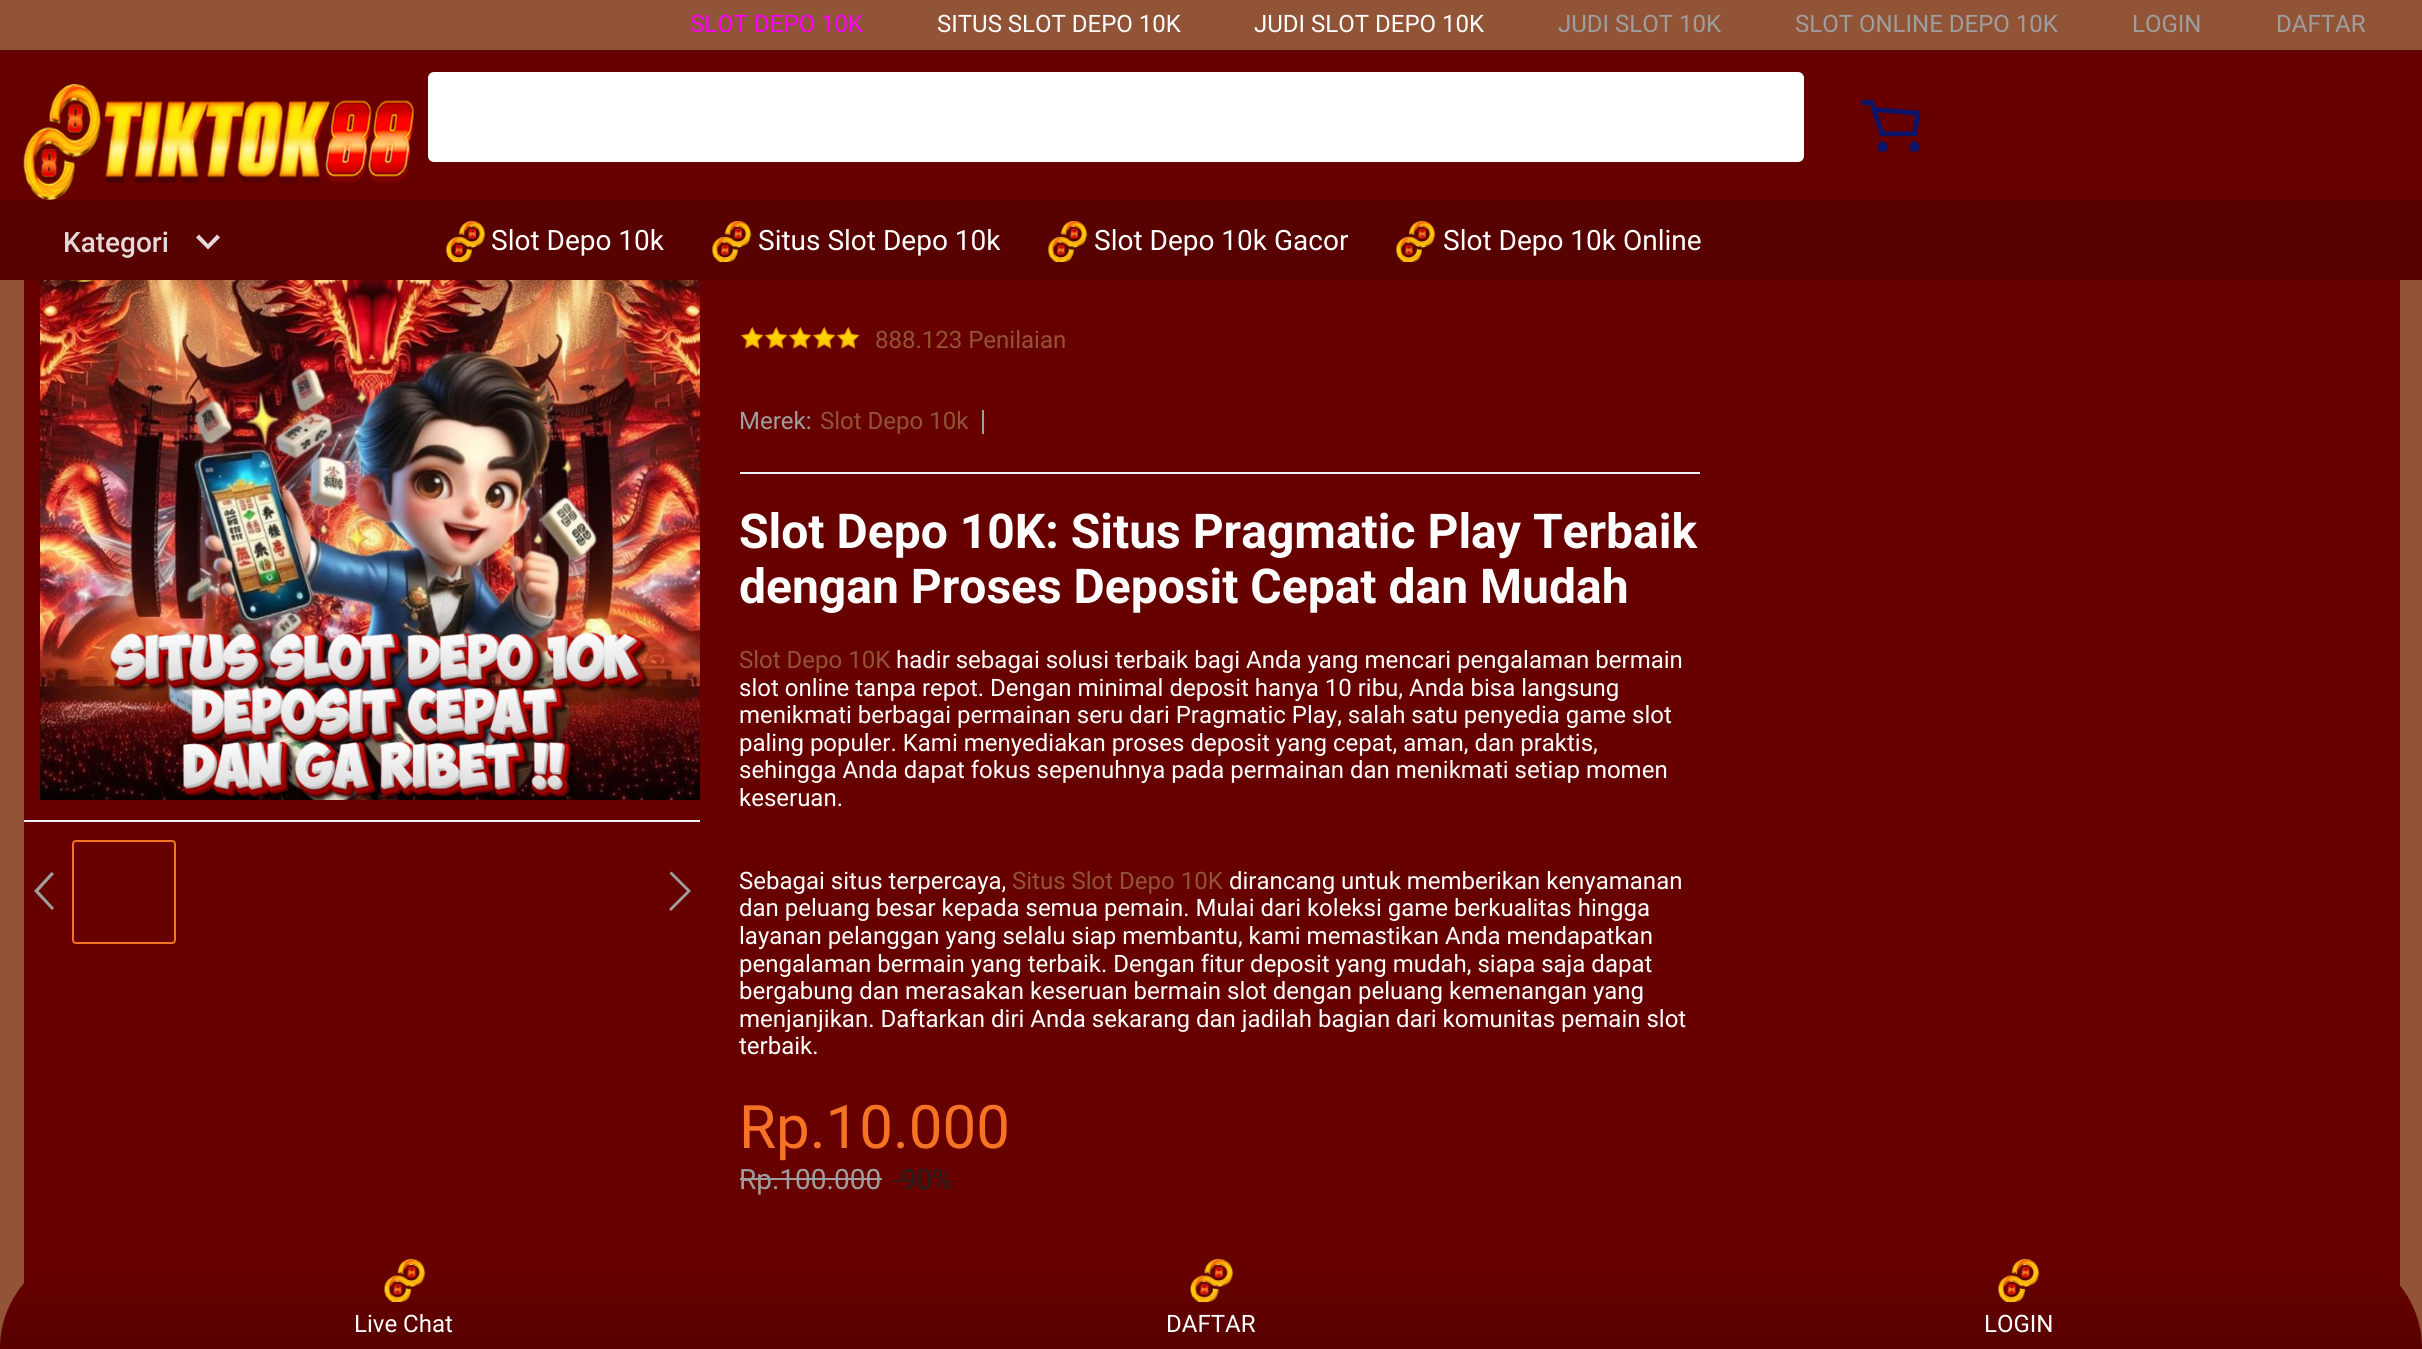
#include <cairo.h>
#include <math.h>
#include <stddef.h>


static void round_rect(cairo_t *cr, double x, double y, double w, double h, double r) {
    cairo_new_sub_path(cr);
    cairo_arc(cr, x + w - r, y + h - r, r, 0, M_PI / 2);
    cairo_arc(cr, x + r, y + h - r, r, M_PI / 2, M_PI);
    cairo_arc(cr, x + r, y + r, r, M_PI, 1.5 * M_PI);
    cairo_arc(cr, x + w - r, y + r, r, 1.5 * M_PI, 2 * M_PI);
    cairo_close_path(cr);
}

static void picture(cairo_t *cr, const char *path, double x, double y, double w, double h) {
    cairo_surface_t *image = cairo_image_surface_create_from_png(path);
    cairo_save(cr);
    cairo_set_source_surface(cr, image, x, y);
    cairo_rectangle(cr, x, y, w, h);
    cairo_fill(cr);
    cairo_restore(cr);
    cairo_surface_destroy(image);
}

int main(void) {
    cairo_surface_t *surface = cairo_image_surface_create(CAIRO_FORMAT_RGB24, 2422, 1349);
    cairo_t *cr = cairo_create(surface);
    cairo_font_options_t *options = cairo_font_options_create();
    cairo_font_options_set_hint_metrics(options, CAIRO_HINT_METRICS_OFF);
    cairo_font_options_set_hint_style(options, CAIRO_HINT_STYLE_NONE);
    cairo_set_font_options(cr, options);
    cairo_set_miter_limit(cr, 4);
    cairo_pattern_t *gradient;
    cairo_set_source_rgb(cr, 0.573, 0.329, 0.216);
    cairo_paint(cr);
    cairo_select_font_face(cr, "Roboto", CAIRO_FONT_SLANT_NORMAL, CAIRO_FONT_WEIGHT_NORMAL);
    cairo_set_font_size(cr, 24);
    cairo_set_source_rgb(cr, 1, 0, 1);
    cairo_move_to(cr, 690, 32);
    cairo_show_text(cr, "SLOT DEPO 10K");
    cairo_set_source_rgb(cr, 1, 1, 1);
    cairo_move_to(cr, 937, 32);
    cairo_show_text(cr, "SITUS SLOT DEPO 10K");
    cairo_move_to(cr, 1254, 32);
    cairo_show_text(cr, "JUDI SLOT DEPO 10K");
    cairo_set_source_rgb(cr, 0.62, 0.62, 0.62);
    cairo_move_to(cr, 1558, 32);
    cairo_show_text(cr, "JUDI SLOT 10K");
    cairo_move_to(cr, 1795, 32);
    cairo_show_text(cr, "SLOT ONLINE DEPO 10K");
    cairo_move_to(cr, 2132, 32);
    cairo_show_text(cr, "LOGIN");
    cairo_move_to(cr, 2276, 32);
    cairo_show_text(cr, "DAFTAR");
    cairo_set_source_rgb(cr, 0.404, 0.004, 0);
    cairo_rectangle(cr, 0, 50, 2422, 150);
    cairo_fill(cr);
    picture(cr, "img1.png", 23, 84, 391, 116);
    cairo_set_source_rgb(cr, 1, 1, 1);
    round_rect(cr, 428, 72, 1376, 90, 6);
    cairo_fill(cr);
    picture(cr, "img2.png", 1862, 100, 59, 52);
    cairo_set_source_rgb(cr, 0.341, 0.004, 0);
    cairo_rectangle(cr, 0, 200, 2422, 80);
    cairo_fill(cr);
    cairo_select_font_face(cr, "Roboto Medium", CAIRO_FONT_SLANT_NORMAL, CAIRO_FONT_WEIGHT_NORMAL);
    cairo_set_font_size(cr, 28);
    cairo_set_source_rgb(cr, 0.902, 0.851, 0.851);
    cairo_move_to(cr, 63, 252);
    cairo_show_text(cr, "Kategori");
    cairo_new_path(cr);
    cairo_move_to(cr, 217, 234.5);
    cairo_line_to(cr, 220, 237.5);
    cairo_line_to(cr, 208, 249.5);
    cairo_line_to(cr, 196, 237.5);
    cairo_line_to(cr, 199, 234.5);
    cairo_line_to(cr, 208, 244);
    cairo_close_path(cr);
    cairo_fill(cr);
    picture(cr, "img3.png", 445, 220, 41, 42);
    cairo_select_font_face(cr, "Roboto", CAIRO_FONT_SLANT_NORMAL, CAIRO_FONT_WEIGHT_NORMAL);
    cairo_set_source_rgb(cr, 1, 1, 1);
    cairo_move_to(cr, 491, 250);
    cairo_show_text(cr, "Slot Depo 10k");
    picture(cr, "img4.png", 711, 220, 41, 42);
    cairo_move_to(cr, 758, 250);
    cairo_show_text(cr, "Situs Slot Depo 10k");
    picture(cr, "img5.png", 1047, 220, 41, 42);
    cairo_move_to(cr, 1094, 250);
    cairo_show_text(cr, "Slot Depo 10k Gacor");
    picture(cr, "img5.png", 1395, 220, 41, 42);
    cairo_move_to(cr, 1443, 250);
    cairo_show_text(cr, "Slot Depo 10k Online");
    cairo_set_source_rgb(cr, 0.404, 0.004, 0);
    cairo_rectangle(cr, 24, 280, 2376, 1006);
    cairo_fill(cr);
    cairo_set_source_rgb(cr, 0.937, 0.941, 0.961);
    cairo_rectangle(cr, 24, 820, 676, 2);
    cairo_fill(cr);
    picture(cr, "img6.png", 40, 280, 660, 520);
    cairo_set_source_rgb(cr, 0.62, 0.62, 0.62);
    cairo_new_path(cr);
    cairo_move_to(cr, 54, 908);
    cairo_line_to(cr, 38.5, 891);
    cairo_line_to(cr, 54, 874);
    cairo_line_to(cr, 51.5, 872);
    cairo_line_to(cr, 34, 891);
    cairo_line_to(cr, 52, 910);
    cairo_close_path(cr);
    cairo_fill(cr);
    round_rect(cr, 73, 841, 102, 102, 3);
    cairo_set_source_rgb(cr, 0.961, 0.447, 0.141);
    cairo_stroke(cr);
    cairo_set_source_rgb(cr, 0.62, 0.62, 0.62);
    cairo_new_path(cr);
    cairo_move_to(cr, 671, 911);
    cairo_line_to(cr, 669, 909);
    cairo_line_to(cr, 687, 891);
    cairo_line_to(cr, 669.5, 873.5);
    cairo_line_to(cr, 671.5, 871.5);
    cairo_line_to(cr, 691, 891);
    cairo_close_path(cr);
    cairo_fill(cr);
    picture(cr, "img7.png", 740, 326, 24, 23);
    picture(cr, "img7.png", 764, 326, 24, 23);
    picture(cr, "img7.png", 788, 326, 24, 23);
    picture(cr, "img7.png", 812, 326, 24, 23);
    picture(cr, "img7.png", 836, 326, 24, 23);
    cairo_set_font_size(cr, 24);
    cairo_set_source_rgb(cr, 0.573, 0.329, 0.216);
    cairo_move_to(cr, 875, 348);
    cairo_show_text(cr, "888.123 Penilaian");
    cairo_set_source_rgb(cr, 0.937, 0.941, 0.961);
    cairo_rectangle(cr, 740, 472, 960, 2);
    cairo_fill(cr);
    cairo_set_source_rgb(cr, 0.62, 0.62, 0.62);
    cairo_move_to(cr, 739, 429);
    cairo_show_text(cr, "Merek:");
    cairo_set_source_rgb(cr, 0.573, 0.329, 0.216);
    cairo_move_to(cr, 820, 429);
    cairo_show_text(cr, "Slot Depo 10k");
    cairo_set_source_rgb(cr, 0.62, 0.62, 0.62);
    cairo_rectangle(cr, 982, 410, 2, 24);
    cairo_fill(cr);
    cairo_select_font_face(cr, "Roboto", CAIRO_FONT_SLANT_NORMAL, CAIRO_FONT_WEIGHT_BOLD);
    cairo_set_font_size(cr, 48);
    cairo_set_source_rgb(cr, 1, 1, 1);
    cairo_move_to(cr, 739, 548);
    cairo_show_text(cr, "Slot Depo 10K: Situs Pragmatic Play Terbaik");
    cairo_move_to(cr, 739, 603);
    cairo_show_text(cr, "dengan Proses Deposit Cepat dan Mudah");
    cairo_select_font_face(cr, "Roboto", CAIRO_FONT_SLANT_NORMAL, CAIRO_FONT_WEIGHT_NORMAL);
    cairo_set_font_size(cr, 24);
    cairo_set_source_rgb(cr, 0.573, 0.329, 0.216);
    cairo_move_to(cr, 739, 668);
    cairo_show_text(cr, "Slot Depo 10K");
    cairo_set_source_rgb(cr, 1, 1, 1);
    cairo_move_to(cr, 896, 668);
    cairo_show_text(cr, "hadir sebagai solusi terbaik bagi Anda yang mencari pengalaman bermain");
    cairo_move_to(cr, 739, 696);
    cairo_show_text(cr, "slot online tanpa repot. Dengan minimal deposit hanya 10 ribu, Anda bisa langsung");
    cairo_move_to(cr, 739, 723);
    cairo_show_text(cr, "menikmati berbagai permainan seru dari Pragmatic Play, salah satu penyedia game slot");
    cairo_move_to(cr, 739, 751);
    cairo_show_text(cr, "paling populer. Kami menyediakan proses deposit yang cepat, aman, dan praktis,");
    cairo_move_to(cr, 739, 778);
    cairo_show_text(cr, "sehingga Anda dapat fokus sepenuhnya pada permainan dan menikmati setiap momen");
    cairo_move_to(cr, 739, 806);
    cairo_show_text(cr, "keseruan.");
    cairo_move_to(cr, 739, 889);
    cairo_show_text(cr, "Sebagai situs terpercaya,");
    cairo_set_source_rgb(cr, 0.573, 0.329, 0.216);
    cairo_move_to(cr, 1012, 889);
    cairo_show_text(cr, "Situs Slot Depo 10K");
    cairo_set_source_rgb(cr, 1, 1, 1);
    cairo_move_to(cr, 1229, 889);
    cairo_show_text(cr, "dirancang untuk memberikan kenyamanan");
    cairo_move_to(cr, 739, 916);
    cairo_show_text(cr, "dan peluang besar kepada semua pemain. Mulai dari koleksi game berkualitas hingga");
    cairo_move_to(cr, 739, 944);
    cairo_show_text(cr, "layanan pelanggan yang selalu siap membantu, kami memastikan Anda mendapatkan");
    cairo_move_to(cr, 739, 972);
    cairo_show_text(cr, "pengalaman bermain yang terbaik. Dengan fitur deposit yang mudah, siapa saja dapat");
    cairo_move_to(cr, 739, 999);
    cairo_show_text(cr, "bergabung dan merasakan keseruan bermain slot dengan peluang kemenangan yang");
    cairo_move_to(cr, 739, 1027);
    cairo_show_text(cr, "menjanjikan. Daftarkan diri Anda sekarang dan jadilah bagian dari komunitas pemain slot");
    cairo_move_to(cr, 739, 1054);
    cairo_show_text(cr, "terbaik.");
    cairo_set_font_size(cr, 60);
    cairo_set_source_rgb(cr, 0.961, 0.447, 0.141);
    cairo_move_to(cr, 739, 1148);
    cairo_show_text(cr, "Rp.10.000");
    cairo_set_font_size(cr, 28);
    cairo_set_source_rgb(cr, 0.62, 0.62, 0.62);
    cairo_move_to(cr, 739, 1189);
    cairo_show_text(cr, "Rp.100.000");
    cairo_rectangle(cr, 740, 1178, 142, 2);
    cairo_fill(cr);
    cairo_set_source_rgb(cr, 0.129, 0.129, 0.129);
    cairo_move_to(cr, 893, 1189);
    cairo_show_text(cr, "-90%");
    gradient = cairo_pattern_create_linear(1211, 1248, 1211, 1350);
    cairo_pattern_add_color_stop_rgba(gradient, 0.02, 0.404, 0.004, 0, 1);
    cairo_pattern_add_color_stop_rgba(gradient, 0.2, 0.404, 0.004, 0, 1);
    cairo_pattern_add_color_stop_rgba(gradient, 1, 0.341, 0.004, 0, 1);
    cairo_set_source(cr, gradient);
    cairo_pattern_destroy(gradient);
    cairo_new_path(cr);
    cairo_move_to(cr, 100, 1248);
    cairo_line_to(cr, 2322, 1248);
    cairo_curve_to(cr, 2377, 1248, 2422, 1293, 2422, 1348);
    cairo_line_to(cr, 2422, 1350);
    cairo_line_to(cr, 0, 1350);
    cairo_line_to(cr, 0, 1348);
    cairo_curve_to(cr, 0, 1293, 45, 1248, 100, 1248);
    cairo_close_path(cr);
    cairo_fill(cr);
    picture(cr, "img8.png", 383, 1258, 43, 44);
    cairo_set_font_size(cr, 24);
    cairo_set_source_rgb(cr, 1, 1, 1);
    cairo_move_to(cr, 354, 1332);
    cairo_show_text(cr, "Live Chat");
    picture(cr, "img9.png", 1189, 1258, 45, 44);
    cairo_move_to(cr, 1166, 1332);
    cairo_show_text(cr, "DAFTAR");
    picture(cr, "img10.png", 1997, 1258, 43, 44);
    cairo_move_to(cr, 1984, 1332);
    cairo_show_text(cr, "LOGIN");
    cairo_surface_write_to_png(surface, "page.png");
    cairo_font_options_destroy(options);
    cairo_destroy(cr);
    cairo_surface_destroy(surface);
    return 0;
}
